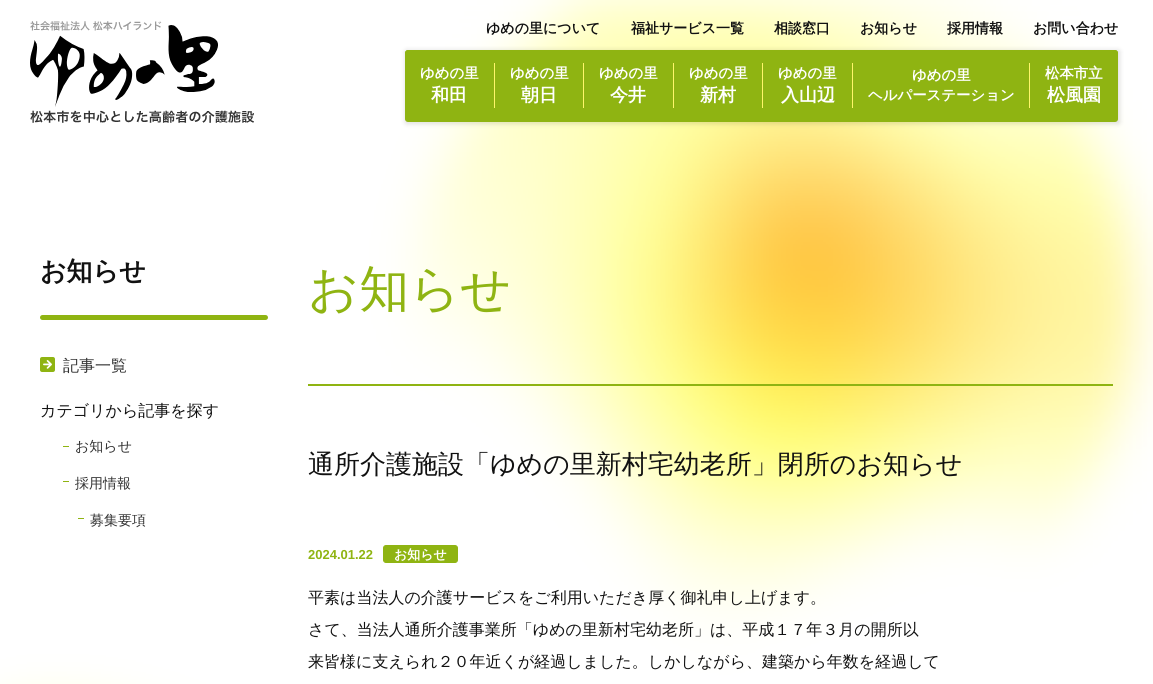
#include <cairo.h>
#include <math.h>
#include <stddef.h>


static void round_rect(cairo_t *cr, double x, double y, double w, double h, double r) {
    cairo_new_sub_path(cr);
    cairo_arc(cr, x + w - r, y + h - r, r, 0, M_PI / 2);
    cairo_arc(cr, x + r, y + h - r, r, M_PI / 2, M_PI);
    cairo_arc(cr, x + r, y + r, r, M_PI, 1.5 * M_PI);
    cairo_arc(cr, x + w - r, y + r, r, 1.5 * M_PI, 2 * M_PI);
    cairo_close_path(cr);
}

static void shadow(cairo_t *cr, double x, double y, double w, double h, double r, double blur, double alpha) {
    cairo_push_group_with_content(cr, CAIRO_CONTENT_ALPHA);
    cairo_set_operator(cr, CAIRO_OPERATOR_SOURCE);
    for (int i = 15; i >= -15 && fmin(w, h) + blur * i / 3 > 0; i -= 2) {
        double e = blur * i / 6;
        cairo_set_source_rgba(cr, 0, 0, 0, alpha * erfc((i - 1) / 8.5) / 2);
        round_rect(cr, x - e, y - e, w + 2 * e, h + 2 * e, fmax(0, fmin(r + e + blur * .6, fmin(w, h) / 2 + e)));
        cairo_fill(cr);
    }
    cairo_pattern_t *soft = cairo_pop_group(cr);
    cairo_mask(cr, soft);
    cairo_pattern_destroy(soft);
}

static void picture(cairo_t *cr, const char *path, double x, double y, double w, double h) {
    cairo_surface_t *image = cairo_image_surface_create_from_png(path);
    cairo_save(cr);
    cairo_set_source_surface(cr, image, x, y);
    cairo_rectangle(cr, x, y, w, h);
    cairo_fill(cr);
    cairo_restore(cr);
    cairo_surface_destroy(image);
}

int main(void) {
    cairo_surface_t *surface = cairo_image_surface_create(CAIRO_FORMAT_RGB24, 1153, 684);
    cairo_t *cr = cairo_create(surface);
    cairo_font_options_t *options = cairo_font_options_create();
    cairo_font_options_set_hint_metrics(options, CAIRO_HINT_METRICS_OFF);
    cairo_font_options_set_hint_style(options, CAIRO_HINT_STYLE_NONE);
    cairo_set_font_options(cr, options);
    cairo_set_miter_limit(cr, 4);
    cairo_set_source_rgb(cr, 1, 1, 1);
    cairo_paint(cr);
    picture(cr, "img1.png", 0, 0, 1153, 684);
    picture(cr, "img2.png", 30, 21, 224, 102);
    cairo_select_font_face(cr, "WenQuanYi Zen Hei", CAIRO_FONT_SLANT_NORMAL, CAIRO_FONT_WEIGHT_BOLD);
    cairo_set_font_size(cr, 14);
    cairo_set_source_rgb(cr, 0.067, 0.067, 0.067);
    cairo_move_to(cr, 486, 33);
    cairo_show_text(cr, "ゆめの里について");
    cairo_move_to(cr, 631, 33);
    cairo_show_text(cr, "福祉サービス一覧");
    cairo_move_to(cr, 774, 33);
    cairo_show_text(cr, "相談窓口");
    cairo_move_to(cr, 860, 33);
    cairo_show_text(cr, "お知らせ");
    cairo_move_to(cr, 947, 33);
    cairo_show_text(cr, "採用情報");
    cairo_move_to(cr, 1033, 33);
    cairo_show_text(cr, "お問い合わせ");
    cairo_set_source_rgb(cr, 0, 0, 0);
    shadow(cr, 406, 51, 713, 72, 0, 3, 0.16);
    cairo_set_source_rgb(cr, 0.561, 0.706, 0.071);
    round_rect(cr, 405, 50, 713, 72, 3);
    cairo_fill(cr);
    cairo_new_path(cr);
    cairo_move_to(cr, 408, 50);
    cairo_line_to(cr, 495, 50);
    cairo_line_to(cr, 495, 121);
    cairo_line_to(cr, 408, 121);
    cairo_curve_to(cr, 406.5, 121, 405, 119.5, 405, 118);
    cairo_line_to(cr, 405, 53);
    cairo_curve_to(cr, 405, 51.5, 406.5, 50, 408, 50);
    cairo_close_path(cr);
    cairo_fill(cr);
    cairo_set_source_rgb(cr, 1, 0.961, 0.416);
    cairo_rectangle(cr, 494, 63, 1, 45);
    cairo_fill(cr);
    cairo_set_font_size(cr, 14.4);
    cairo_set_source_rgb(cr, 1, 1, 1);
    cairo_move_to(cr, 420, 78);
    cairo_show_text(cr, "ゆめの里");
    cairo_set_font_size(cr, 18);
    cairo_move_to(cr, 431, 101);
    cairo_show_text(cr, "和田");
    cairo_set_source_rgb(cr, 1, 0.961, 0.416);
    cairo_rectangle(cr, 583, 63, 1, 45);
    cairo_fill(cr);
    cairo_set_font_size(cr, 14.4);
    cairo_set_source_rgb(cr, 1, 1, 1);
    cairo_move_to(cr, 510, 78);
    cairo_show_text(cr, "ゆめの里");
    cairo_set_font_size(cr, 18);
    cairo_move_to(cr, 521, 101);
    cairo_show_text(cr, "朝日");
    cairo_set_source_rgb(cr, 1, 0.961, 0.416);
    cairo_rectangle(cr, 673, 63, 1, 45);
    cairo_fill(cr);
    cairo_set_font_size(cr, 14.4);
    cairo_set_source_rgb(cr, 1, 1, 1);
    cairo_move_to(cr, 599, 78);
    cairo_show_text(cr, "ゆめの里");
    cairo_set_font_size(cr, 18);
    cairo_move_to(cr, 610, 101);
    cairo_show_text(cr, "今井");
    cairo_set_source_rgb(cr, 1, 0.961, 0.416);
    cairo_rectangle(cr, 762, 63, 1, 45);
    cairo_fill(cr);
    cairo_set_font_size(cr, 14.4);
    cairo_set_source_rgb(cr, 1, 1, 1);
    cairo_move_to(cr, 689, 78);
    cairo_show_text(cr, "ゆめの里");
    cairo_set_font_size(cr, 18);
    cairo_move_to(cr, 700, 101);
    cairo_show_text(cr, "新村");
    cairo_set_source_rgb(cr, 1, 0.961, 0.416);
    cairo_rectangle(cr, 852, 63, 1, 45);
    cairo_fill(cr);
    cairo_set_font_size(cr, 14.4);
    cairo_set_source_rgb(cr, 1, 1, 1);
    cairo_move_to(cr, 778, 78);
    cairo_show_text(cr, "ゆめの里");
    cairo_set_font_size(cr, 18);
    cairo_move_to(cr, 781, 101);
    cairo_show_text(cr, "入山辺");
    cairo_set_source_rgb(cr, 1, 0.961, 0.416);
    cairo_rectangle(cr, 1029, 63, 1, 45);
    cairo_fill(cr);
    cairo_set_font_size(cr, 14.4);
    cairo_set_source_rgb(cr, 1, 1, 1);
    cairo_move_to(cr, 912, 80);
    cairo_show_text(cr, "ゆめの里");
    cairo_move_to(cr, 868, 100);
    cairo_show_text(cr, "ヘルパーステーション");
    cairo_set_source_rgb(cr, 0.561, 0.706, 0.071);
    cairo_new_path(cr);
    cairo_move_to(cr, 1030, 50);
    cairo_line_to(cr, 1115, 50);
    cairo_curve_to(cr, 1116.5, 50, 1118, 51.5, 1118, 53);
    cairo_line_to(cr, 1118, 118);
    cairo_curve_to(cr, 1118, 119.5, 1116.5, 121, 1115, 121);
    cairo_line_to(cr, 1030, 121);
    cairo_close_path(cr);
    cairo_fill(cr);
    cairo_set_source_rgb(cr, 1, 1, 1);
    cairo_move_to(cr, 1045, 78);
    cairo_show_text(cr, "松本市立");
    cairo_set_font_size(cr, 18);
    cairo_move_to(cr, 1047, 101);
    cairo_show_text(cr, "松風園");
    cairo_set_font_size(cr, 26);
    cairo_set_source_rgb(cr, 0.067, 0.067, 0.067);
    cairo_move_to(cr, 40, 280);
    cairo_show_text(cr, "お知らせ");
    cairo_set_source_rgb(cr, 0.561, 0.706, 0.071);
    round_rect(cr, 40, 315, 228, 5, 2.5);
    cairo_fill(cr);
    picture(cr, "img3.png", 40, 357, 15, 15);
    cairo_select_font_face(cr, "WenQuanYi Zen Hei Medium", CAIRO_FONT_SLANT_NORMAL, CAIRO_FONT_WEIGHT_NORMAL);
    cairo_set_font_size(cr, 16);
    cairo_set_source_rgb(cr, 0.2, 0.2, 0.2);
    cairo_move_to(cr, 63, 371);
    cairo_show_text(cr, "記事一覧");
    cairo_set_source_rgb(cr, 0.067, 0.067, 0.067);
    cairo_move_to(cr, 40, 416);
    cairo_show_text(cr, "カテゴリから記事を探す");
    cairo_set_source_rgb(cr, 0.561, 0.706, 0.071);
    cairo_rectangle(cr, 63, 446, 6, 1);
    cairo_fill(cr);
    cairo_set_font_size(cr, 14);
    cairo_set_source_rgb(cr, 0.2, 0.2, 0.2);
    cairo_move_to(cr, 75, 451);
    cairo_show_text(cr, "お知らせ");
    cairo_set_source_rgb(cr, 0.561, 0.706, 0.071);
    cairo_rectangle(cr, 63, 481, 6, 1);
    cairo_fill(cr);
    cairo_set_source_rgb(cr, 0.2, 0.2, 0.2);
    cairo_move_to(cr, 75, 488);
    cairo_show_text(cr, "採用情報");
    cairo_set_source_rgb(cr, 0.561, 0.706, 0.071);
    cairo_rectangle(cr, 78, 518, 6, 1);
    cairo_fill(cr);
    cairo_set_source_rgb(cr, 0.2, 0.2, 0.2);
    cairo_move_to(cr, 90, 525);
    cairo_show_text(cr, "募集要項");
    cairo_set_source_rgb(cr, 0.561, 0.706, 0.071);
    cairo_rectangle(cr, 308, 384, 805, 2);
    cairo_fill(cr);
    cairo_set_font_size(cr, 50);
    cairo_move_to(cr, 308, 306);
    cairo_show_text(cr, "お知らせ");
    cairo_set_font_size(cr, 26);
    cairo_set_source_rgb(cr, 0.067, 0.067, 0.067);
    cairo_move_to(cr, 308, 473);
    cairo_show_text(cr, "通所介護施設「ゆめの里新村宅幼老所」閉所のお知らせ");
    cairo_select_font_face(cr, "Liberation Sans", CAIRO_FONT_SLANT_NORMAL, CAIRO_FONT_WEIGHT_BOLD);
    cairo_set_font_size(cr, 13);
    cairo_set_source_rgb(cr, 0.561, 0.706, 0.071);
    cairo_move_to(cr, 308, 559);
    cairo_show_text(cr, "2024.01.22");
    round_rect(cr, 383.5, 545.5, 74, 17, 2.5);
    cairo_fill_preserve(cr);
    cairo_set_line_width(cr, 1);
    cairo_stroke(cr);
    cairo_select_font_face(cr, "WenQuanYi Zen Hei", CAIRO_FONT_SLANT_NORMAL, CAIRO_FONT_WEIGHT_BOLD);
    cairo_set_source_rgb(cr, 1, 1, 1);
    cairo_move_to(cr, 394, 559);
    cairo_show_text(cr, "お知らせ");
    cairo_select_font_face(cr, "WenQuanYi Zen Hei Medium", CAIRO_FONT_SLANT_NORMAL, CAIRO_FONT_WEIGHT_NORMAL);
    cairo_set_font_size(cr, 16);
    cairo_set_source_rgb(cr, 0.067, 0.067, 0.067);
    cairo_move_to(cr, 308, 603);
    cairo_show_text(cr, "平素は当法人の介護サービスをご利用いただき厚く御礼申し上げます。");
    cairo_move_to(cr, 308, 635);
    cairo_show_text(cr, "さて、当法人通所介護事業所「ゆめの里新村宅幼老所」は、平成１７年３月の開所以");
    cairo_move_to(cr, 308, 667);
    cairo_show_text(cr, "来皆様に支えられ２０年近くが経過しました。しかしながら、建築から年数を経過して");
    cairo_surface_write_to_png(surface, "page.png");
    cairo_font_options_destroy(options);
    cairo_destroy(cr);
    cairo_surface_destroy(surface);
    return 0;
}
